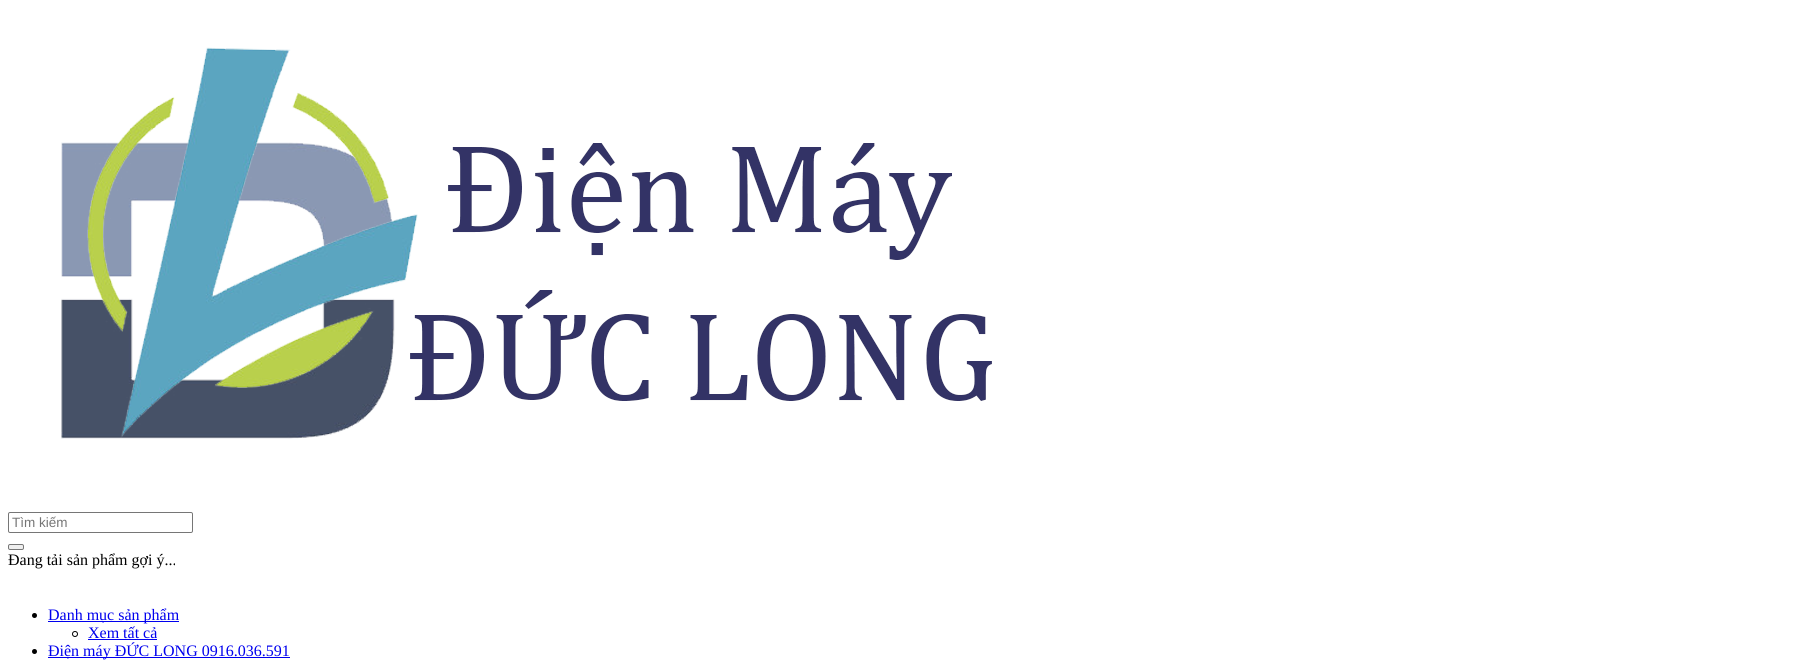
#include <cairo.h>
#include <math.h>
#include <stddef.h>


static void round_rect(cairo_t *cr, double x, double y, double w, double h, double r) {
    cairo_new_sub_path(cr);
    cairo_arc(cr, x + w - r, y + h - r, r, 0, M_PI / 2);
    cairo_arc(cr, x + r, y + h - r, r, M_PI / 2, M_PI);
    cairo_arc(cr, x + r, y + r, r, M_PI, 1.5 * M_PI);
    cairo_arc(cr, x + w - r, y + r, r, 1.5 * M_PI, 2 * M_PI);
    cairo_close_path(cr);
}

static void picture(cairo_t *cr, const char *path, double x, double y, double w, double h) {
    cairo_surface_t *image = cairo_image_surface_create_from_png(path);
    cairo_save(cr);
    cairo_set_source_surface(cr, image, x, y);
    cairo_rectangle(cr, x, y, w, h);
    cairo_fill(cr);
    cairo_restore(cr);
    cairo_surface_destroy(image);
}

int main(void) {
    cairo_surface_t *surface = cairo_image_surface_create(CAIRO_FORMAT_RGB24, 1820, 664);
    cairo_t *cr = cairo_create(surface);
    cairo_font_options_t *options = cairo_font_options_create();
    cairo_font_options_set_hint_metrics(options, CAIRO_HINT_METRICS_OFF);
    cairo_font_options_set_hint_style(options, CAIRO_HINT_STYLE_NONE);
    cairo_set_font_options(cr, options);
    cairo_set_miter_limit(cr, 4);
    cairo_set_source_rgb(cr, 1, 1, 1);
    cairo_paint(cr);
    picture(cr, "img1.png", 61, 47, 931, 392);
    round_rect(cr, 8.5, 512.5, 184, 20, 1.5);
    cairo_set_source_rgb(cr, 0.463, 0.463, 0.463);
    cairo_set_line_width(cr, 1);
    cairo_stroke(cr);
    cairo_select_font_face(cr, "Liberation Sans", CAIRO_FONT_SLANT_NORMAL, CAIRO_FONT_WEIGHT_NORMAL);
    cairo_set_font_size(cr, 13.5);
    cairo_set_source_rgb(cr, 0.459, 0.459, 0.459);
    cairo_move_to(cr, 12, 527);
    cairo_show_text(cr, "Tìm kiếm");
    cairo_set_source_rgb(cr, 0.937, 0.937, 0.937);
    round_rect(cr, 8.5, 544.5, 15, 5, 1.5);
    cairo_fill_preserve(cr);
    cairo_set_source_rgb(cr, 0.463, 0.463, 0.463);
    cairo_stroke(cr);
    cairo_select_font_face(cr, "Liberation Serif", CAIRO_FONT_SLANT_NORMAL, CAIRO_FONT_WEIGHT_NORMAL);
    cairo_set_font_size(cr, 16);
    cairo_set_source_rgb(cr, 0, 0, 0);
    cairo_move_to(cr, 8, 565);
    cairo_show_text(cr, "Đang tải sản phẩm gợi ý...");
    cairo_new_path(cr);
    cairo_arc(cr, 34.5, 615.5, 2.5, 0, 2 * M_PI);
    cairo_fill(cr);
    cairo_set_source_rgb(cr, 0, 0, 0.933);
    cairo_rectangle(cr, 48, 621, 131, 1);
    cairo_fill(cr);
    cairo_move_to(cr, 48, 620);
    cairo_show_text(cr, "Danh mục sản phẩm");
    cairo_new_path(cr);
    cairo_arc(cr, 75, 634, 2.5, 0, 2 * M_PI);
    cairo_set_source_rgb(cr, 0, 0, 0);
    cairo_stroke(cr);
    cairo_set_source_rgb(cr, 0, 0, 0.933);
    cairo_move_to(cr, 88, 638);
    cairo_show_text(cr, "Xem tất cả");
    cairo_rectangle(cr, 88, 639, 69, 1);
    cairo_fill(cr);
    cairo_set_source_rgb(cr, 0, 0, 0);
    cairo_arc(cr, 34.5, 651.5, 2.5, 0, 2 * M_PI);
    cairo_fill(cr);
    cairo_set_source_rgb(cr, 0, 0, 0.933);
    cairo_rectangle(cr, 48, 657, 242, 1);
    cairo_fill(cr);
    cairo_move_to(cr, 48, 656);
    cairo_show_text(cr, "Điện máy ĐỨC LONG 0916.036.591");
    cairo_surface_write_to_png(surface, "page.png");
    cairo_font_options_destroy(options);
    cairo_destroy(cr);
    cairo_surface_destroy(surface);
    return 0;
}
